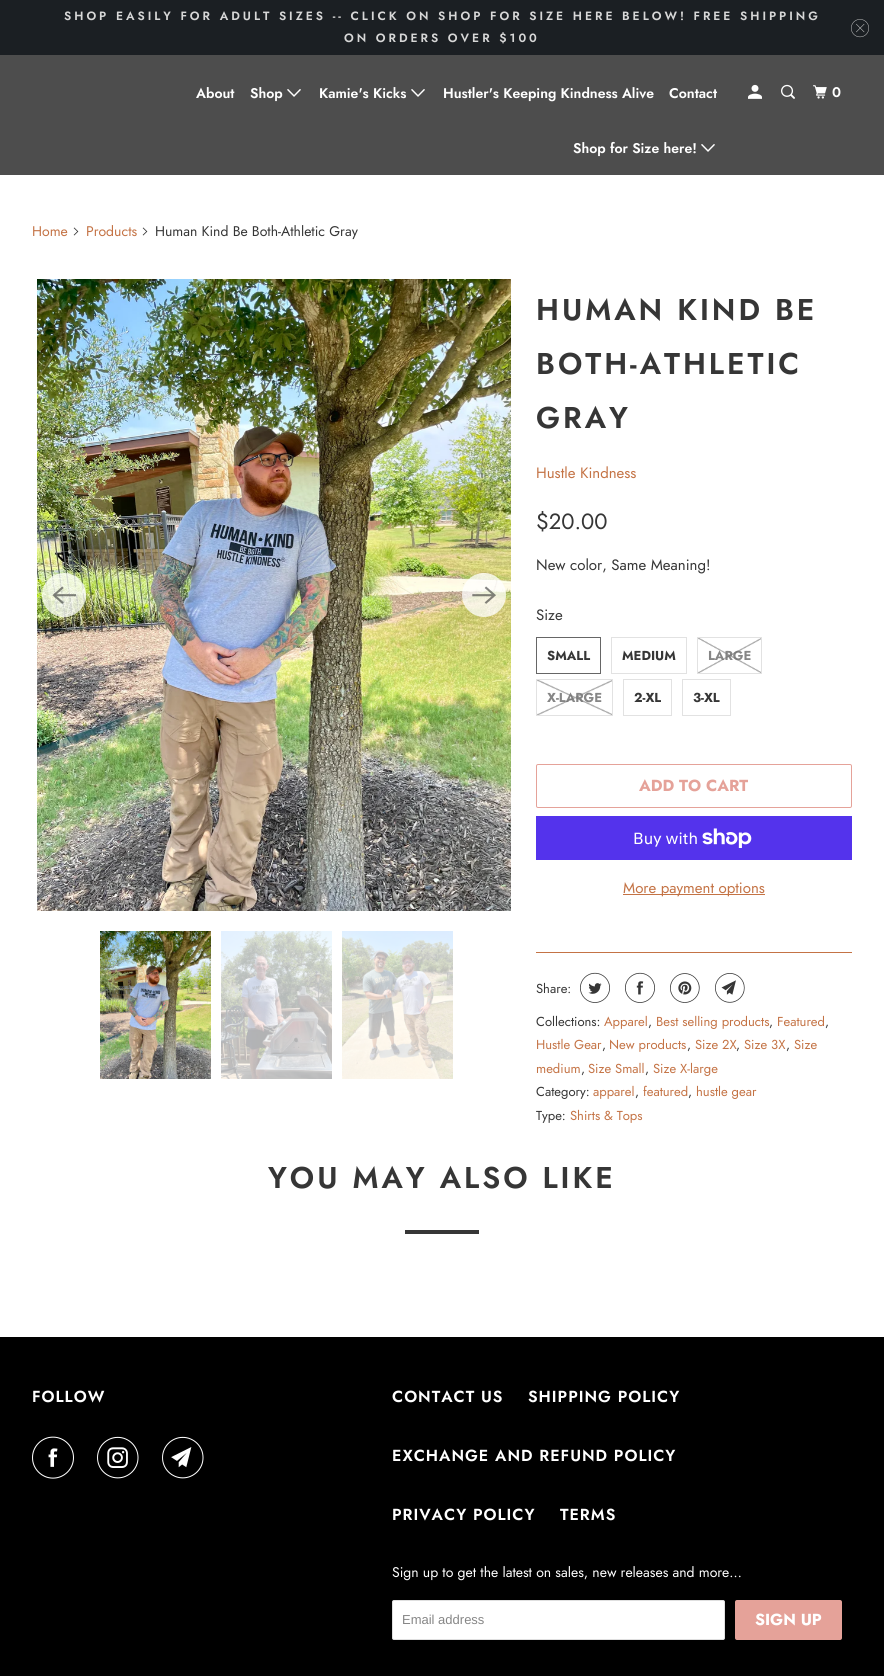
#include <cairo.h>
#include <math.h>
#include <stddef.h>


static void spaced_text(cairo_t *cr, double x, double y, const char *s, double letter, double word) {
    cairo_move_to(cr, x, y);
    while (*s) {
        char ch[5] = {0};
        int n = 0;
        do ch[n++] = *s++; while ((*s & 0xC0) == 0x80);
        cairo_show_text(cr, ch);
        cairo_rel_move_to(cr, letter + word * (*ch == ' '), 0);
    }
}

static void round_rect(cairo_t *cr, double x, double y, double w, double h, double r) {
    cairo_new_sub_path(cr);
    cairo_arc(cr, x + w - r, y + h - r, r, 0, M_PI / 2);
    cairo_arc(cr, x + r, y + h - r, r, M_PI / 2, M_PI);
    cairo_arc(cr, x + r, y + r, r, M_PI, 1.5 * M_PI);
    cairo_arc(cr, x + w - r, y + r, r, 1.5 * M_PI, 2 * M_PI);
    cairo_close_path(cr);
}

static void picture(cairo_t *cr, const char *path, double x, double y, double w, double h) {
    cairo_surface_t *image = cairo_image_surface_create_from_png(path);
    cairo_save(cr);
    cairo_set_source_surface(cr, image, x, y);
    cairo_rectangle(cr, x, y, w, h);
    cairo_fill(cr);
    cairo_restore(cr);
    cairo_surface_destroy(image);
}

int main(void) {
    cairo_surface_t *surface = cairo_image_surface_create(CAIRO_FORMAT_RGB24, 884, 1676);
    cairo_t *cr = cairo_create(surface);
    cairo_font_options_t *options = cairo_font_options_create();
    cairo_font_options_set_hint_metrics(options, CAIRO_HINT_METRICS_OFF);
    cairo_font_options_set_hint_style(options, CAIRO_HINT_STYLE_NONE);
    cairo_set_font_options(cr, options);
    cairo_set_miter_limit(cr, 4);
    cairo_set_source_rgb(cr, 1, 1, 1);
    cairo_paint(cr);
    cairo_set_source_rgb(cr, 0.106, 0.122, 0.137);
    cairo_rectangle(cr, 0, 0, 884, 55);
    cairo_fill(cr);
    cairo_select_font_face(cr, "Jost SemiBold", CAIRO_FONT_SLANT_NORMAL, CAIRO_FONT_WEIGHT_NORMAL);
    cairo_set_font_size(cr, 12);
    cairo_set_source_rgb(cr, 0.843, 0.843, 0.843);
    spaced_text(cr, 64, 20, "SHOP EASILY FOR ADULT SIZES -- CLICK ON SHOP FOR SIZE HERE BELOW! FREE SHIPPING", 3, 0);
    spaced_text(cr, 344, 42, "ON ORDERS OVER $100", 3, 0);
    picture(cr, "img1.png", 851, 19, 18, 19);
    cairo_set_source_rgb(cr, 0.302, 0.302, 0.302);
    cairo_rectangle(cr, 0, 55, 884, 120);
    cairo_fill(cr);
    cairo_set_font_size(cr, 14);
    cairo_set_source_rgb(cr, 1, 1, 1);
    cairo_move_to(cr, 196, 98);
    cairo_show_text(cr, "About");
    cairo_move_to(cr, 250, 98);
    cairo_show_text(cr, "Shop");
    picture(cr, "img2.png", 287, 89, 14, 8);
    cairo_move_to(cr, 319, 98);
    cairo_show_text(cr, "Kamie's Kicks");
    picture(cr, "img2.png", 411, 89, 14, 8);
    cairo_move_to(cr, 443, 98);
    cairo_show_text(cr, "Hustler's Keeping Kindness Alive");
    cairo_move_to(cr, 669, 98);
    cairo_show_text(cr, "Contact");
    cairo_move_to(cr, 573, 153);
    cairo_show_text(cr, "Shop for Size here!");
    picture(cr, "img2.png", 701, 144, 14, 8);
    picture(cr, "img3.png", 748, 84, 14, 15);
    picture(cr, "img4.png", 781, 84, 14, 15);
    picture(cr, "img5.png", 813, 85, 14, 14);
    cairo_move_to(cr, 832, 97);
    cairo_show_text(cr, "0");
    cairo_select_font_face(cr, "Jost", CAIRO_FONT_SLANT_NORMAL, CAIRO_FONT_WEIGHT_NORMAL);
    cairo_set_source_rgb(cr, 0.769, 0.451, 0.271);
    cairo_move_to(cr, 32, 236);
    cairo_show_text(cr, "Home");
    picture(cr, "img6.png", 73, 227, 6, 9);
    cairo_move_to(cr, 86, 236);
    cairo_show_text(cr, "Products");
    picture(cr, "img6.png", 142, 227, 6, 9);
    cairo_set_source_rgb(cr, 0.212, 0.212, 0.212);
    cairo_move_to(cr, 155, 236);
    cairo_show_text(cr, "Human Kind Be Both-Athletic Gray");
    picture(cr, "img7.png", 37, 279, 474, 632);
    cairo_set_source_rgba(cr, 1, 1, 1, 0.75);
    cairo_arc(cr, 64, 595, 22, 0, 2 * M_PI);
    cairo_fill(cr);
    picture(cr, "img8.png", 52, 586, 25, 18);
    cairo_arc(cr, 484, 595, 22, 0, 2 * M_PI);
    cairo_fill(cr);
    picture(cr, "img9.png", 472, 586, 24, 18);
    picture(cr, "img10.png", 100, 931, 111, 148);
    picture(cr, "img11.png", 221, 931, 111, 148);
    picture(cr, "img12.png", 342, 931, 111, 148);
    cairo_select_font_face(cr, "Jost SemiBold", CAIRO_FONT_SLANT_NORMAL, CAIRO_FONT_WEIGHT_NORMAL);
    cairo_set_font_size(cr, 30);
    cairo_set_source_rgb(cr, 0.212, 0.212, 0.212);
    spaced_text(cr, 536, 320, "HUMAN KIND BE", 3, 0);
    spaced_text(cr, 536, 374, "BOTH-ATHLETIC", 3, 0);
    spaced_text(cr, 536, 428, "GRAY", 3, 0);
    cairo_select_font_face(cr, "Jost", CAIRO_FONT_SLANT_NORMAL, CAIRO_FONT_WEIGHT_NORMAL);
    cairo_set_font_size(cr, 15);
    cairo_set_source_rgb(cr, 0.769, 0.451, 0.271);
    cairo_move_to(cr, 536, 478);
    cairo_show_text(cr, "Hustle Kindness");
    cairo_set_font_size(cr, 22);
    cairo_set_source_rgb(cr, 0.212, 0.212, 0.212);
    cairo_move_to(cr, 536, 529);
    cairo_show_text(cr, "$20.00");
    cairo_set_font_size(cr, 15);
    cairo_move_to(cr, 536, 570);
    cairo_show_text(cr, "New color, Same Meaning!");
    cairo_move_to(cr, 536, 620);
    cairo_show_text(cr, "Size");
    cairo_rectangle(cr, 536.5, 637.5, 64, 36);
    cairo_set_source_rgb(cr, 0.4, 0.4, 0.4);
    cairo_set_line_width(cr, 1);
    cairo_stroke(cr);
    cairo_select_font_face(cr, "Jost", CAIRO_FONT_SLANT_NORMAL, CAIRO_FONT_WEIGHT_BOLD);
    cairo_set_font_size(cr, 13);
    cairo_set_source_rgb(cr, 0.212, 0.212, 0.212);
    cairo_move_to(cr, 547, 660);
    cairo_show_text(cr, "SMALL");
    cairo_rectangle(cr, 611.5, 637.5, 75, 36);
    cairo_set_source_rgb(cr, 0.886, 0.886, 0.886);
    cairo_stroke(cr);
    cairo_set_source_rgb(cr, 0.212, 0.212, 0.212);
    cairo_move_to(cr, 622, 660);
    cairo_show_text(cr, "MEDIUM");
    cairo_rectangle(cr, 697.5, 637.5, 64, 36);
    cairo_set_source_rgb(cr, 0.886, 0.886, 0.886);
    cairo_stroke(cr);
    cairo_set_source_rgb(cr, 0.525, 0.525, 0.525);
    cairo_move_to(cr, 708, 660);
    cairo_show_text(cr, "LARGE");
    picture(cr, "img13.png", 698, 638, 63, 35);
    cairo_rectangle(cr, 536.5, 679.5, 76, 36);
    cairo_set_source_rgb(cr, 0.886, 0.886, 0.886);
    cairo_stroke(cr);
    cairo_set_source_rgb(cr, 0.525, 0.525, 0.525);
    cairo_move_to(cr, 547, 702);
    cairo_show_text(cr, "X-LARGE");
    picture(cr, "img14.png", 537, 680, 75, 35);
    cairo_rectangle(cr, 623.5, 679.5, 48, 36);
    cairo_set_source_rgb(cr, 0.886, 0.886, 0.886);
    cairo_stroke(cr);
    cairo_set_source_rgb(cr, 0.212, 0.212, 0.212);
    cairo_move_to(cr, 634, 702);
    cairo_show_text(cr, "2-XL");
    cairo_rectangle(cr, 682.5, 679.5, 48, 36);
    cairo_set_source_rgb(cr, 0.886, 0.886, 0.886);
    cairo_stroke(cr);
    cairo_set_source_rgb(cr, 0.212, 0.212, 0.212);
    cairo_move_to(cr, 693, 702);
    cairo_show_text(cr, "3-XL");
    round_rect(cr, 536.5, 764.5, 315, 43, 1.5);
    cairo_set_source_rgb(cr, 0.898, 0.635, 0.6);
    cairo_stroke(cr);
    cairo_set_font_size(cr, 16);
    cairo_move_to(cr, 639, 791);
    cairo_show_text(cr, "ADD TO CART");
    cairo_set_source_rgb(cr, 0.329, 0.2, 0.922);
    cairo_rectangle(cr, 536, 816, 316, 44);
    cairo_fill(cr);
    cairo_select_font_face(cr, "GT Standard", CAIRO_FONT_SLANT_NORMAL, CAIRO_FONT_WEIGHT_NORMAL);
    cairo_set_source_rgb(cr, 1, 1, 1);
    cairo_move_to(cr, 633, 844);
    cairo_show_text(cr, "Buy with");
    picture(cr, "img15.png", 702, 828, 50, 20);
    cairo_set_source_rgb(cr, 0.769, 0.451, 0.271);
    cairo_rectangle(cr, 623, 894, 142, 1);
    cairo_fill(cr);
    cairo_select_font_face(cr, "Jost", CAIRO_FONT_SLANT_NORMAL, CAIRO_FONT_WEIGHT_NORMAL);
    cairo_set_font_size(cr, 15);
    cairo_move_to(cr, 623, 893);
    cairo_show_text(cr, "More payment options");
    cairo_rectangle(cr, 536, 952, 316, 1);
    cairo_fill(cr);
    cairo_set_font_size(cr, 13);
    cairo_set_source_rgb(cr, 0.212, 0.212, 0.212);
    cairo_move_to(cr, 536, 993);
    cairo_show_text(cr, "Share:");
    picture(cr, "img16.png", 580, 972, 30, 31);
    picture(cr, "img17.png", 625, 972, 30, 31);
    picture(cr, "img18.png", 670, 973, 30, 30);
    picture(cr, "img19.png", 715, 973, 30, 30);
    cairo_move_to(cr, 536, 1026);
    cairo_show_text(cr, "Collections:");
    cairo_set_source_rgb(cr, 0.769, 0.451, 0.271);
    cairo_move_to(cr, 604, 1026);
    cairo_show_text(cr, "Apparel");
    cairo_set_source_rgb(cr, 0.212, 0.212, 0.212);
    cairo_move_to(cr, 648, 1026);
    cairo_show_text(cr, ",");
    cairo_set_source_rgb(cr, 0.769, 0.451, 0.271);
    cairo_move_to(cr, 656, 1026);
    cairo_show_text(cr, "Best selling products");
    cairo_set_source_rgb(cr, 0.212, 0.212, 0.212);
    cairo_move_to(cr, 769, 1026);
    cairo_show_text(cr, ",");
    cairo_set_source_rgb(cr, 0.769, 0.451, 0.271);
    cairo_move_to(cr, 777, 1026);
    cairo_show_text(cr, "Featured");
    cairo_set_source_rgb(cr, 0.212, 0.212, 0.212);
    cairo_move_to(cr, 825, 1026);
    cairo_show_text(cr, ",");
    cairo_set_source_rgb(cr, 0.769, 0.451, 0.271);
    cairo_move_to(cr, 536, 1049);
    cairo_show_text(cr, "Hustle Gear");
    cairo_set_source_rgb(cr, 0.212, 0.212, 0.212);
    cairo_move_to(cr, 602, 1049);
    cairo_show_text(cr, ",");
    cairo_set_source_rgb(cr, 0.769, 0.451, 0.271);
    cairo_move_to(cr, 609, 1049);
    cairo_show_text(cr, "New products");
    cairo_set_source_rgb(cr, 0.212, 0.212, 0.212);
    cairo_move_to(cr, 687, 1049);
    cairo_show_text(cr, ",");
    cairo_set_source_rgb(cr, 0.769, 0.451, 0.271);
    cairo_move_to(cr, 695, 1049);
    cairo_show_text(cr, "Size 2X");
    cairo_set_source_rgb(cr, 0.212, 0.212, 0.212);
    cairo_move_to(cr, 736, 1049);
    cairo_show_text(cr, ",");
    cairo_set_source_rgb(cr, 0.769, 0.451, 0.271);
    cairo_move_to(cr, 744, 1049);
    cairo_show_text(cr, "Size 3X");
    cairo_set_source_rgb(cr, 0.212, 0.212, 0.212);
    cairo_move_to(cr, 786, 1049);
    cairo_show_text(cr, ",");
    cairo_set_source_rgb(cr, 0.769, 0.451, 0.271);
    cairo_move_to(cr, 794, 1049);
    cairo_show_text(cr, "Size");
    cairo_move_to(cr, 536, 1073);
    cairo_show_text(cr, "medium");
    cairo_set_source_rgb(cr, 0.212, 0.212, 0.212);
    cairo_move_to(cr, 581, 1073);
    cairo_show_text(cr, ",");
    cairo_set_source_rgb(cr, 0.769, 0.451, 0.271);
    cairo_move_to(cr, 588, 1073);
    cairo_show_text(cr, "Size Small");
    cairo_set_source_rgb(cr, 0.212, 0.212, 0.212);
    cairo_move_to(cr, 645, 1073);
    cairo_show_text(cr, ",");
    cairo_set_source_rgb(cr, 0.769, 0.451, 0.271);
    cairo_move_to(cr, 653, 1073);
    cairo_show_text(cr, "Size X-large");
    cairo_set_source_rgb(cr, 0.212, 0.212, 0.212);
    cairo_move_to(cr, 536, 1096);
    cairo_show_text(cr, "Category:");
    cairo_set_source_rgb(cr, 0.769, 0.451, 0.271);
    cairo_move_to(cr, 593, 1096);
    cairo_show_text(cr, "apparel");
    cairo_set_source_rgb(cr, 0.212, 0.212, 0.212);
    cairo_move_to(cr, 635, 1096);
    cairo_show_text(cr, ",");
    cairo_set_source_rgb(cr, 0.769, 0.451, 0.271);
    cairo_move_to(cr, 643, 1096);
    cairo_show_text(cr, "featured");
    cairo_set_source_rgb(cr, 0.212, 0.212, 0.212);
    cairo_move_to(cr, 688, 1096);
    cairo_show_text(cr, ",");
    cairo_set_source_rgb(cr, 0.769, 0.451, 0.271);
    cairo_move_to(cr, 696, 1096);
    cairo_show_text(cr, "hustle gear");
    cairo_set_source_rgb(cr, 0.212, 0.212, 0.212);
    cairo_move_to(cr, 536, 1120);
    cairo_show_text(cr, "Type:");
    cairo_set_source_rgb(cr, 0.769, 0.451, 0.271);
    cairo_move_to(cr, 570, 1120);
    cairo_show_text(cr, "Shirts & Tops");
    cairo_select_font_face(cr, "Jost SemiBold", CAIRO_FONT_SLANT_NORMAL, CAIRO_FONT_WEIGHT_NORMAL);
    cairo_set_font_size(cr, 30);
    cairo_set_source_rgb(cr, 0.212, 0.212, 0.212);
    spaced_text(cr, 268, 1188, "YOU MAY ALSO LIKE", 3, 0);
    cairo_rectangle(cr, 405, 1230, 74, 4);
    cairo_fill(cr);
    cairo_set_source_rgb(cr, 0, 0, 0);
    cairo_rectangle(cr, 0, 1337, 884, 339);
    cairo_fill(cr);
    cairo_set_font_size(cr, 16);
    cairo_set_source_rgb(cr, 1, 1, 1);
    spaced_text(cr, 32, 1402, "FOLLOW", 1, 0);
    picture(cr, "img20.png", 32, 1436, 42, 43);
    picture(cr, "img21.png", 97, 1436, 42, 43);
    picture(cr, "img22.png", 162, 1436, 42, 43);
    spaced_text(cr, 392, 1402, "CONTACT US", 1, 0);
    spaced_text(cr, 528, 1402, "SHIPPING POLICY", 1, 0);
    spaced_text(cr, 392, 1461, "EXCHANGE AND REFUND POLICY", 1, 0);
    spaced_text(cr, 392, 1520, "PRIVACY POLICY", 1, 0);
    spaced_text(cr, 560, 1520, "TERMS", 1, 0);
    cairo_select_font_face(cr, "Jost", CAIRO_FONT_SLANT_NORMAL, CAIRO_FONT_WEIGHT_NORMAL);
    cairo_set_font_size(cr, 14);
    cairo_move_to(cr, 392, 1577);
    cairo_show_text(cr, "Sign up to get the latest on sales, new releases and more…");
    round_rect(cr, 392.5, 1600.5, 332, 39, 1.5);
    cairo_fill_preserve(cr);
    cairo_set_source_rgb(cr, 0.875, 0.875, 0.875);
    cairo_stroke(cr);
    cairo_select_font_face(cr, "Liberation Sans", CAIRO_FONT_SLANT_NORMAL, CAIRO_FONT_WEIGHT_NORMAL);
    cairo_set_font_size(cr, 13);
    cairo_set_source_rgb(cr, 0.525, 0.525, 0.525);
    cairo_move_to(cr, 402, 1624);
    cairo_show_text(cr, "Email address");
    cairo_set_source_rgb(cr, 0.898, 0.635, 0.6);
    round_rect(cr, 735, 1600, 107, 40, 2);
    cairo_fill(cr);
    cairo_select_font_face(cr, "Jost", CAIRO_FONT_SLANT_NORMAL, CAIRO_FONT_WEIGHT_BOLD);
    cairo_set_font_size(cr, 16);
    cairo_set_source_rgb(cr, 1, 1, 1);
    cairo_move_to(cr, 755, 1625);
    cairo_show_text(cr, "SIGN UP");
    cairo_surface_write_to_png(surface, "page.png");
    cairo_font_options_destroy(options);
    cairo_destroy(cr);
    cairo_surface_destroy(surface);
    return 0;
}
